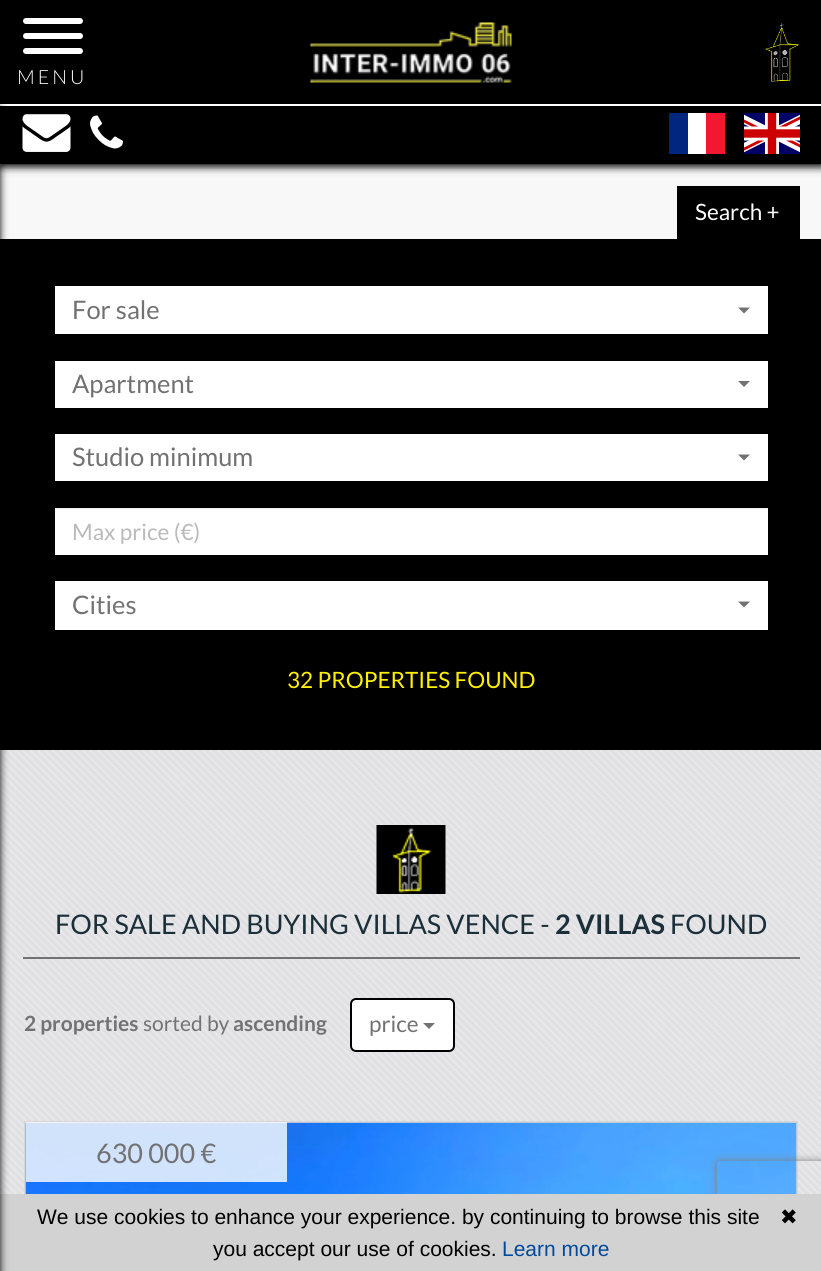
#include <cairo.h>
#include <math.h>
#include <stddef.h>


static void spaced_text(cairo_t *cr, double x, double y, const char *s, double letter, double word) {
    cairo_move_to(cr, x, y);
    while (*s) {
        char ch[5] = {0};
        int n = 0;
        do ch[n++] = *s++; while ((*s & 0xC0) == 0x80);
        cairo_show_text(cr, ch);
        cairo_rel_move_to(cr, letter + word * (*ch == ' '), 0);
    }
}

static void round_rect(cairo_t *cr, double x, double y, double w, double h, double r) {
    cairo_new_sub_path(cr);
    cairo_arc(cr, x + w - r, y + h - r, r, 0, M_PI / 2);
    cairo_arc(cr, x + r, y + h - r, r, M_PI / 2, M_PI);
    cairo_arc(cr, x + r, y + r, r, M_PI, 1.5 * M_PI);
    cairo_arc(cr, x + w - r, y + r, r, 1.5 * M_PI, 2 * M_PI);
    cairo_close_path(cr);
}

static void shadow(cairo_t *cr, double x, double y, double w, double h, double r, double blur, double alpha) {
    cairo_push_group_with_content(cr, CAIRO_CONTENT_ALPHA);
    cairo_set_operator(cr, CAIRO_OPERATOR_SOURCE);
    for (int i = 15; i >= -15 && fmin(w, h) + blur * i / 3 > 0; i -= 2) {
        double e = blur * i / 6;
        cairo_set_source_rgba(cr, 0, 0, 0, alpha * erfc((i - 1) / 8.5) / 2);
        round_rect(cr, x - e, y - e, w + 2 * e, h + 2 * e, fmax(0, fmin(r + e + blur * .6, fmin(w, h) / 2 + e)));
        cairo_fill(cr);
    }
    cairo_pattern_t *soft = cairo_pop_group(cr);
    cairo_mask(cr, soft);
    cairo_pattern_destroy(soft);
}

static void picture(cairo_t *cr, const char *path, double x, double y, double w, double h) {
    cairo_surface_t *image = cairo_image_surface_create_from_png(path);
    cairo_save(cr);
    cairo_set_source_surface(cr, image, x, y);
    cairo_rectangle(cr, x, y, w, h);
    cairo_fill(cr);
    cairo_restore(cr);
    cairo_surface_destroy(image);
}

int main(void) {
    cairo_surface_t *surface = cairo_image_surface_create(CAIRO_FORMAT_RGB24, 821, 1271);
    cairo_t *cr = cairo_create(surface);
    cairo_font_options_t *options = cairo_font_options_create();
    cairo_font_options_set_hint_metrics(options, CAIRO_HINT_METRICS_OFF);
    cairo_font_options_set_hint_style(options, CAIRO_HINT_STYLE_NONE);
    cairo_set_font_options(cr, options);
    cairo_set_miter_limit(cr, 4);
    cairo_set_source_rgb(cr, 0.969, 0.969, 0.969);
    cairo_paint(cr);
    cairo_set_source_rgb(cr, 0, 0, 0);
    shadow(cr, 0, 3, 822, 164, 0, 4, 1);
    cairo_set_source_rgb(cr, 0, 0, 0);
    cairo_rectangle(cr, 0, 0, 821, 164);
    cairo_fill(cr);
    cairo_set_source_rgb(cr, 1, 1, 1);
    cairo_rectangle(cr, 0, 104, 821, 2);
    cairo_fill(cr);
    round_rect(cr, 23, 18, 60, 6, 3);
    cairo_fill(cr);
    round_rect(cr, 23, 33, 60, 6, 3);
    cairo_fill(cr);
    round_rect(cr, 23, 48, 60, 6, 3);
    cairo_fill(cr);
    cairo_select_font_face(cr, "Lato Light", CAIRO_FONT_SLANT_NORMAL, CAIRO_FONT_WEIGHT_NORMAL);
    cairo_set_font_size(cr, 19.5);
    spaced_text(cr, 17, 84, "MENU", 3, 0);
    picture(cr, "img1.png", 310, 22, 202, 61);
    picture(cr, "img2.png", 765, 23, 34, 59);
    picture(cr, "img3.png", 22, 114, 49, 38);
    picture(cr, "img4.png", 90, 115, 33, 34);
    cairo_rectangle(cr, 688, 113, 18, 41);
    cairo_fill(cr);
    cairo_set_source_rgb(cr, 0, 0.149, 0.498);
    cairo_rectangle(cr, 669, 113, 19, 41);
    cairo_fill(cr);
    cairo_set_source_rgb(cr, 0.953, 0.094, 0.188);
    cairo_rectangle(cr, 706, 113, 19, 41);
    cairo_fill(cr);
    picture(cr, "img5.png", 744, 113, 56, 41);
    cairo_set_source_rgb(cr, 0, 0, 0);
    cairo_rectangle(cr, 0, 239, 821, 511);
    cairo_fill(cr);
    picture(cr, "img6.png", 0, 750, 821, 444);
    cairo_set_source_rgb(cr, 0.839, 0.839, 0.839);
    cairo_rectangle(cr, 24, 1121, 774, 73);
    cairo_fill(cr);
    picture(cr, "img8.png", 25, 1122, 772, 72);
    cairo_save(cr);
    cairo_set_fill_rule(cr, CAIRO_FILL_RULE_EVEN_ODD);
    cairo_new_path(cr);
    cairo_move_to(cr, 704, 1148);
    cairo_line_to(cr, 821, 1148);
    cairo_line_to(cr, 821, 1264);
    cairo_line_to(cr, 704, 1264);
    cairo_close_path(cr);
    cairo_move_to(cr, 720, 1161);
    cairo_line_to(cr, 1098, 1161);
    cairo_curve_to(cr, 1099.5, 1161, 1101, 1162.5, 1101, 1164);
    cairo_line_to(cr, 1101, 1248);
    cairo_curve_to(cr, 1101, 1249.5, 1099.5, 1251, 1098, 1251);
    cairo_line_to(cr, 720, 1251);
    cairo_curve_to(cr, 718.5, 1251, 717, 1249.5, 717, 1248);
    cairo_line_to(cr, 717, 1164);
    cairo_curve_to(cr, 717, 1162.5, 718.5, 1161, 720, 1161);
    cairo_close_path(cr);
    cairo_clip(cr);
    cairo_set_source_rgb(cr, 0.502, 0.502, 0.502);
    shadow(cr, 717, 1161, 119, 90, 3, 4, 1);
    cairo_restore(cr);
    cairo_set_source_rgb(cr, 0.824, 0.824, 0.824);
    cairo_rectangle(cr, 0, 1194, 821, 77);
    cairo_fill(cr);
    cairo_set_source_rgb(cr, 0, 0, 0);
    shadow(cr, -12, 108, 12, 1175, 0, 4, 1);
    cairo_set_source_rgb(cr, 0, 0, 0);
    cairo_rectangle(cr, 677, 186, 123, 53);
    cairo_fill(cr);
    cairo_select_font_face(cr, "Lato", CAIRO_FONT_SLANT_NORMAL, CAIRO_FONT_WEIGHT_NORMAL);
    cairo_set_font_size(cr, 22.5);
    cairo_set_source_rgb(cr, 1, 1, 1);
    cairo_move_to(cr, 695, 220);
    cairo_show_text(cr, "Search +");
    cairo_rectangle(cr, 55, 286, 713, 48);
    cairo_fill(cr);
    cairo_set_font_size(cr, 25.5);
    cairo_set_source_rgb(cr, 0.447, 0.447, 0.447);
    cairo_move_to(cr, 72, 319);
    cairo_show_text(cr, "For sale");
    cairo_new_path(cr);
    cairo_move_to(cr, 738, 307.5);
    cairo_line_to(cr, 750, 307.5);
    cairo_line_to(cr, 744, 313.5);
    cairo_close_path(cr);
    cairo_fill(cr);
    cairo_set_source_rgb(cr, 1, 1, 1);
    cairo_rectangle(cr, 55, 361, 713, 47);
    cairo_fill(cr);
    cairo_set_source_rgb(cr, 0.447, 0.447, 0.447);
    cairo_move_to(cr, 72, 393);
    cairo_show_text(cr, "Apartment");
    cairo_new_path(cr);
    cairo_move_to(cr, 738, 381);
    cairo_line_to(cr, 750, 381);
    cairo_line_to(cr, 744, 387);
    cairo_close_path(cr);
    cairo_fill(cr);
    cairo_set_source_rgb(cr, 1, 1, 1);
    cairo_rectangle(cr, 55, 434, 713, 47);
    cairo_fill(cr);
    cairo_set_source_rgb(cr, 0.447, 0.447, 0.447);
    cairo_move_to(cr, 72, 466);
    cairo_show_text(cr, "Studio minimum");
    cairo_new_path(cr);
    cairo_move_to(cr, 738, 454.5);
    cairo_line_to(cr, 750, 454.5);
    cairo_line_to(cr, 744, 460.5);
    cairo_close_path(cr);
    cairo_fill(cr);
    cairo_set_source_rgb(cr, 1, 1, 1);
    cairo_rectangle(cr, 55, 509, 713, 46);
    cairo_fill(cr);
    cairo_set_source_rgb(cr, 0.925, 0.925, 0.925);
    cairo_rectangle(cr, 54, 508, 714, 1);
    cairo_fill(cr);
    cairo_rectangle(cr, 54, 507, 715, 49);
    cairo_set_source_rgb(cr, 0, 0, 0);
    cairo_stroke(cr);
    cairo_set_font_size(cr, 22.5);
    cairo_set_source_rgb(cr, 0.729, 0.729, 0.729);
    cairo_move_to(cr, 72, 540);
    cairo_show_text(cr, "Max price (€)");
    cairo_set_source_rgb(cr, 1, 1, 1);
    cairo_rectangle(cr, 55, 581, 713, 49);
    cairo_fill(cr);
    cairo_set_font_size(cr, 25.5);
    cairo_set_source_rgb(cr, 0.447, 0.447, 0.447);
    cairo_move_to(cr, 72, 614);
    cairo_show_text(cr, "Cities");
    cairo_new_path(cr);
    cairo_move_to(cr, 738, 601.5);
    cairo_line_to(cr, 750, 601.5);
    cairo_line_to(cr, 744, 607.5);
    cairo_close_path(cr);
    cairo_fill(cr);
    cairo_set_font_size(cr, 22.5);
    cairo_set_source_rgb(cr, 1, 0.941, 0);
    cairo_move_to(cr, 287, 688);
    cairo_show_text(cr, "32 PROPERTIES FOUND");
    picture(cr, "img7.png", 376, 825, 70, 69);
    cairo_set_font_size(cr, 27);
    cairo_set_source_rgb(cr, 0.106, 0.184, 0.227);
    cairo_move_to(cr, 55, 934);
    cairo_show_text(cr, "FOR SALE AND BUYING VILLAS VENCE -");
    cairo_select_font_face(cr, "Lato", CAIRO_FONT_SLANT_NORMAL, CAIRO_FONT_WEIGHT_BOLD);
    cairo_move_to(cr, 555, 934);
    cairo_show_text(cr, "2 VILLAS");
    cairo_select_font_face(cr, "Lato", CAIRO_FONT_SLANT_NORMAL, CAIRO_FONT_WEIGHT_NORMAL);
    cairo_move_to(cr, 670, 934);
    cairo_show_text(cr, "FOUND");
    cairo_set_source_rgb(cr, 0.447, 0.447, 0.447);
    cairo_rectangle(cr, 23, 957, 777, 2);
    cairo_fill(cr);
    cairo_select_font_face(cr, "Lato", CAIRO_FONT_SLANT_NORMAL, CAIRO_FONT_WEIGHT_BOLD);
    cairo_set_font_size(cr, 21);
    cairo_move_to(cr, 24, 1031);
    cairo_show_text(cr, "2 properties");
    cairo_select_font_face(cr, "Lato", CAIRO_FONT_SLANT_NORMAL, CAIRO_FONT_WEIGHT_NORMAL);
    cairo_move_to(cr, 143, 1031);
    cairo_show_text(cr, "sorted by");
    cairo_select_font_face(cr, "Lato", CAIRO_FONT_SLANT_NORMAL, CAIRO_FONT_WEIGHT_BOLD);
    cairo_move_to(cr, 233, 1031);
    cairo_show_text(cr, "ascending");
    cairo_set_source_rgb(cr, 1, 1, 1);
    round_rect(cr, 351, 999, 103, 52, 5);
    cairo_fill_preserve(cr);
    cairo_set_source_rgb(cr, 0, 0, 0);
    cairo_stroke(cr);
    cairo_select_font_face(cr, "Lato", CAIRO_FONT_SLANT_NORMAL, CAIRO_FONT_WEIGHT_NORMAL);
    cairo_set_font_size(cr, 22.5);
    cairo_set_source_rgb(cr, 0.447, 0.447, 0.447);
    cairo_move_to(cr, 369, 1032);
    cairo_show_text(cr, "price");
    cairo_new_path(cr);
    cairo_move_to(cr, 423, 1023);
    cairo_line_to(cr, 435, 1023);
    cairo_line_to(cr, 429, 1029);
    cairo_close_path(cr);
    cairo_fill(cr);
    cairo_set_source_rgba(cr, 1, 1, 1, 0.8);
    cairo_rectangle(cr, 26, 1122, 261, 60);
    cairo_fill(cr);
    cairo_set_font_size(cr, 27);
    cairo_set_source_rgb(cr, 0.447, 0.447, 0.447);
    cairo_move_to(cr, 96, 1163);
    cairo_show_text(cr, "630 000 €");
    cairo_select_font_face(cr, "Liberation Sans", CAIRO_FONT_SLANT_NORMAL, CAIRO_FONT_WEIGHT_NORMAL);
    cairo_set_font_size(cr, 21);
    cairo_set_source_rgb(cr, 0, 0, 0);
    cairo_move_to(cr, 37, 1224);
    cairo_show_text(cr, "We use cookies to enhance your experience. by continuing to browse this site");
    cairo_select_font_face(cr, "DejaVu Sans", CAIRO_FONT_SLANT_NORMAL, CAIRO_FONT_WEIGHT_NORMAL);
    cairo_move_to(cr, 780, 1224);
    cairo_show_text(cr, "✖");
    cairo_select_font_face(cr, "Liberation Sans", CAIRO_FONT_SLANT_NORMAL, CAIRO_FONT_WEIGHT_NORMAL);
    cairo_move_to(cr, 213, 1256);
    cairo_show_text(cr, "you accept our use of cookies.");
    cairo_set_source_rgb(cr, 0, 0.29, 0.612);
    cairo_move_to(cr, 502, 1256);
    cairo_show_text(cr, "Learn more");
    cairo_surface_write_to_png(surface, "page.png");
    cairo_font_options_destroy(options);
    cairo_destroy(cr);
    cairo_surface_destroy(surface);
    return 0;
}
